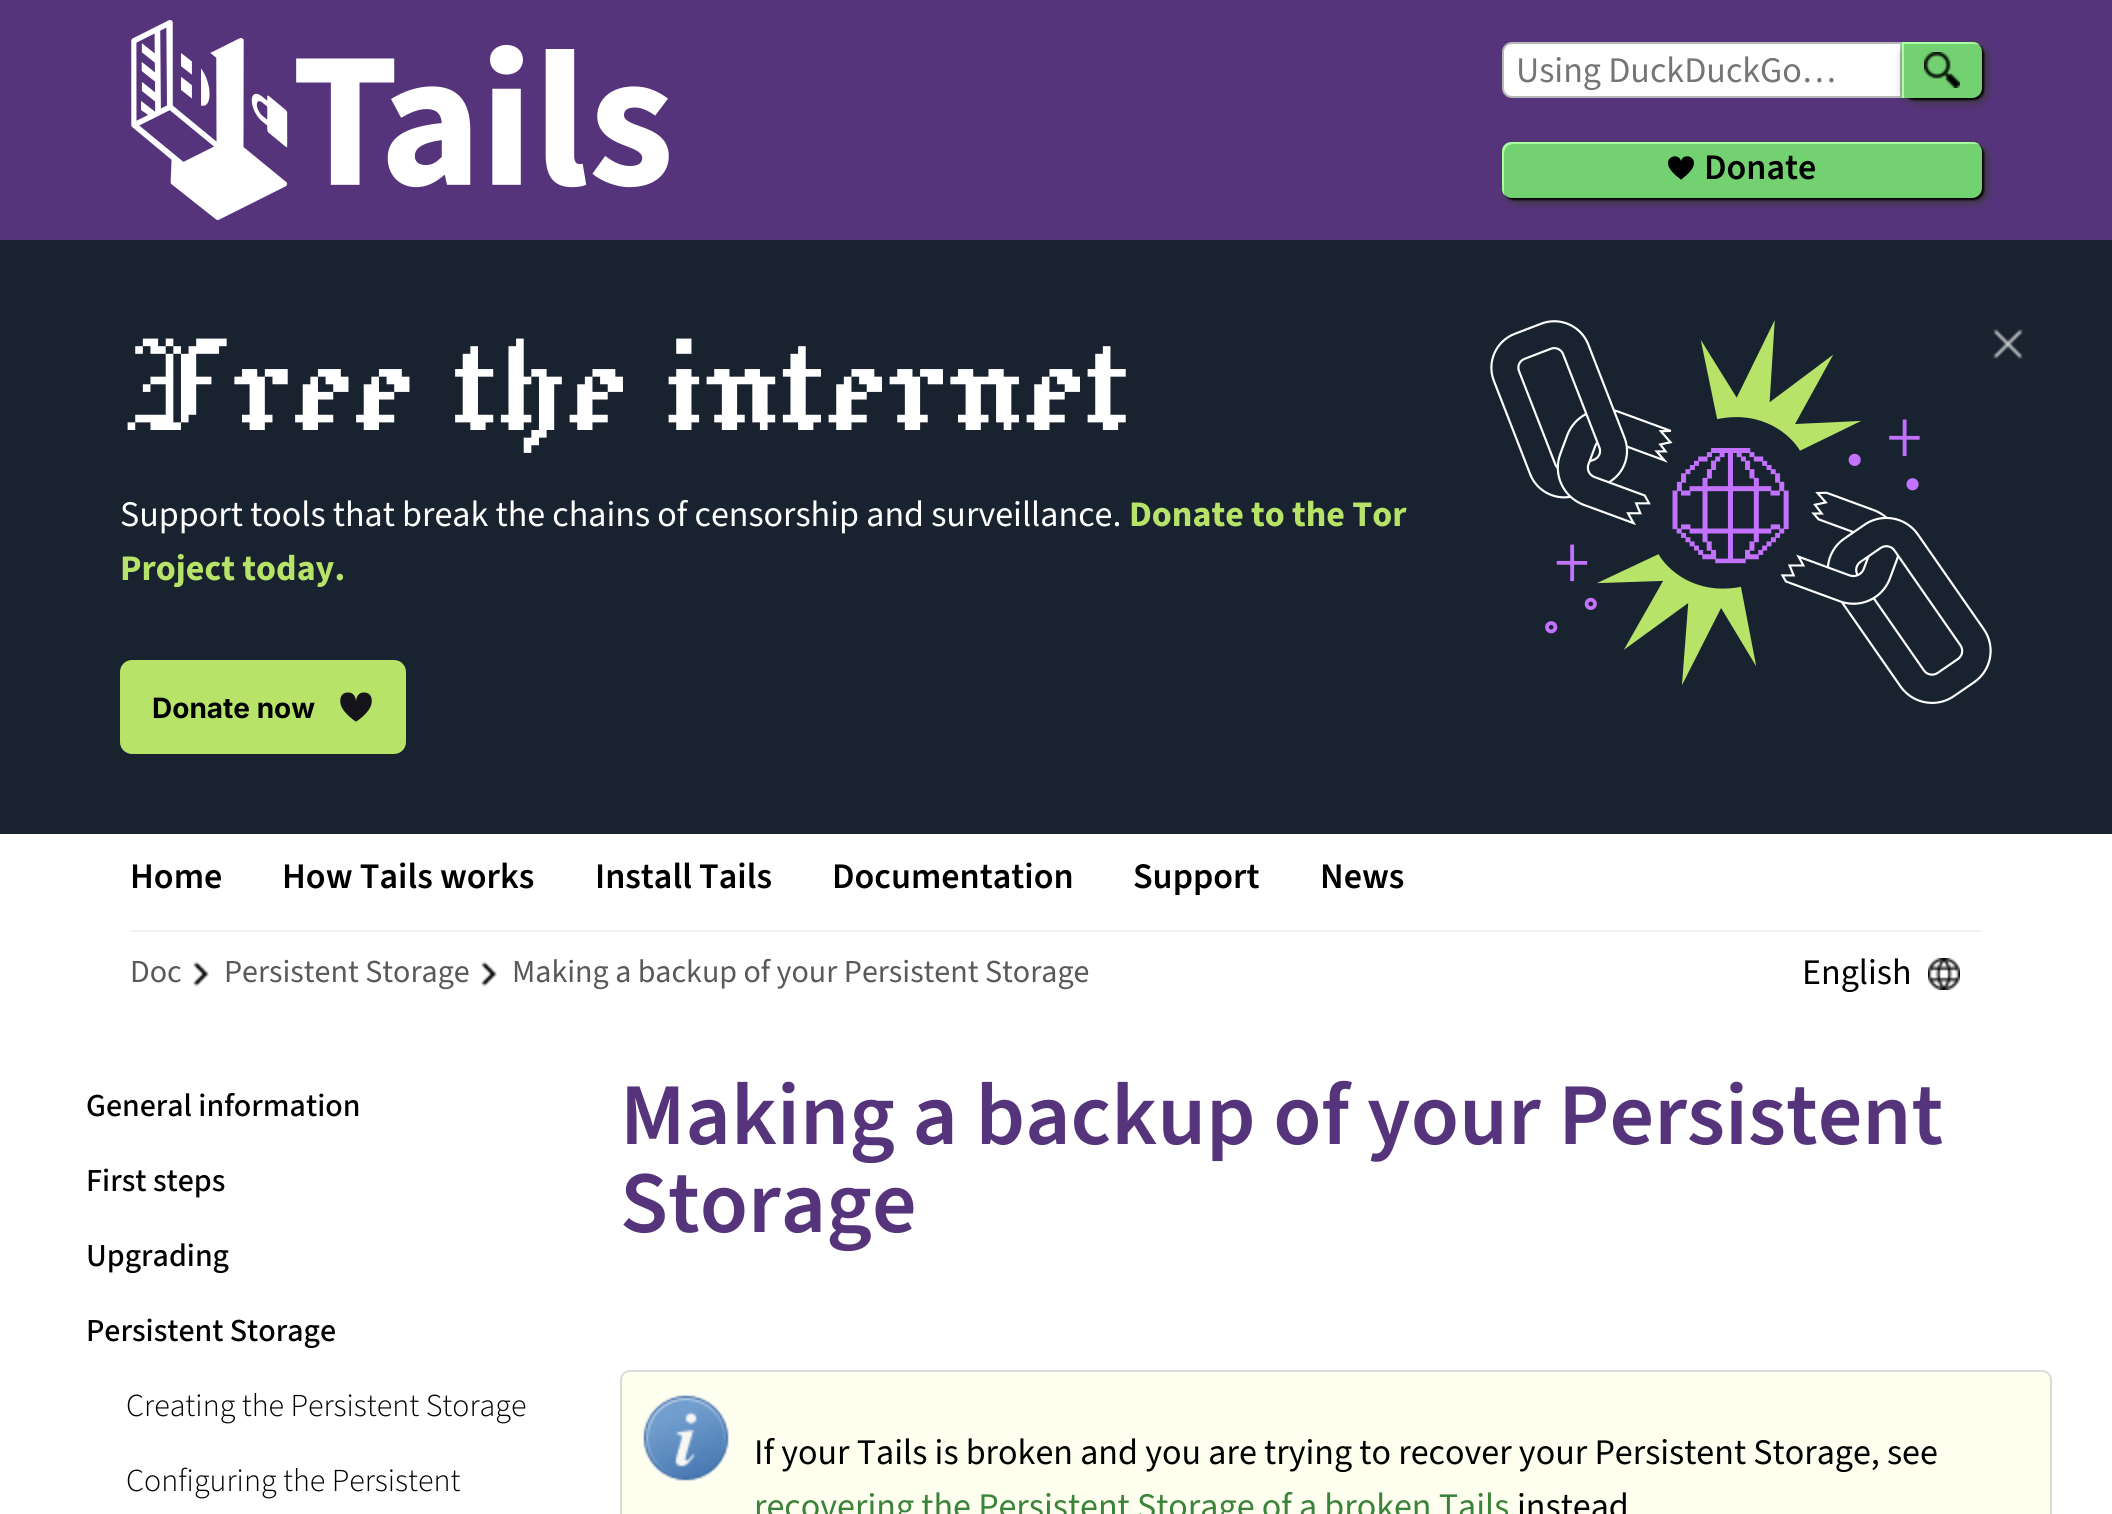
#include <cairo.h>
#include <math.h>
#include <stddef.h>


static void round_rect(cairo_t *cr, double x, double y, double w, double h, double r) {
    cairo_new_sub_path(cr);
    cairo_arc(cr, x + w - r, y + h - r, r, 0, M_PI / 2);
    cairo_arc(cr, x + r, y + h - r, r, M_PI / 2, M_PI);
    cairo_arc(cr, x + r, y + r, r, M_PI, 1.5 * M_PI);
    cairo_arc(cr, x + w - r, y + r, r, 1.5 * M_PI, 2 * M_PI);
    cairo_close_path(cr);
}

static void shadow(cairo_t *cr, double x, double y, double w, double h, double r, double blur, double alpha) {
    cairo_push_group_with_content(cr, CAIRO_CONTENT_ALPHA);
    cairo_set_operator(cr, CAIRO_OPERATOR_SOURCE);
    for (int i = 15; i >= -15 && fmin(w, h) + blur * i / 3 > 0; i -= 2) {
        double e = blur * i / 6;
        cairo_set_source_rgba(cr, 0, 0, 0, alpha * erfc((i - 1) / 8.5) / 2);
        round_rect(cr, x - e, y - e, w + 2 * e, h + 2 * e, fmax(0, fmin(r + e + blur * .6, fmin(w, h) / 2 + e)));
        cairo_fill(cr);
    }
    cairo_pattern_t *soft = cairo_pop_group(cr);
    cairo_mask(cr, soft);
    cairo_pattern_destroy(soft);
}

static void picture(cairo_t *cr, const char *path, double x, double y, double w, double h) {
    cairo_surface_t *image = cairo_image_surface_create_from_png(path);
    cairo_save(cr);
    cairo_set_source_surface(cr, image, x, y);
    cairo_rectangle(cr, x, y, w, h);
    cairo_fill(cr);
    cairo_restore(cr);
    cairo_surface_destroy(image);
}

int main(void) {
    cairo_surface_t *surface = cairo_image_surface_create(CAIRO_FORMAT_RGB24, 2112, 1514);
    cairo_t *cr = cairo_create(surface);
    cairo_font_options_t *options = cairo_font_options_create();
    cairo_font_options_set_hint_metrics(options, CAIRO_HINT_METRICS_OFF);
    cairo_font_options_set_hint_style(options, CAIRO_HINT_STYLE_NONE);
    cairo_set_font_options(cr, options);
    cairo_set_miter_limit(cr, 4);
    cairo_set_source_rgb(cr, 1, 1, 1);
    cairo_paint(cr);
    cairo_set_source_rgb(cr, 0.337, 0.204, 0.486);
    cairo_rectangle(cr, 0, 0, 2112, 240);
    cairo_fill(cr);
    picture(cr, "img1.png", 131, 20, 538, 200);
    cairo_set_source_rgb(cr, 1, 1, 1);
    cairo_new_path(cr);
    cairo_move_to(cr, 1512, 43);
    cairo_line_to(cr, 1901, 43);
    cairo_line_to(cr, 1901, 97);
    cairo_line_to(cr, 1512, 97);
    cairo_curve_to(cr, 1507, 97, 1503, 93, 1503, 88);
    cairo_line_to(cr, 1503, 52);
    cairo_curve_to(cr, 1503, 47, 1507, 43, 1512, 43);
    cairo_close_path(cr);
    cairo_fill_preserve(cr);
    cairo_set_source_rgb(cr, 0.71, 0.718, 0.725);
    cairo_stroke(cr);
    cairo_select_font_face(cr, "Source Sans 3", CAIRO_FONT_SLANT_NORMAL, CAIRO_FONT_WEIGHT_NORMAL);
    cairo_set_font_size(cr, 36);
    cairo_set_source_rgb(cr, 0.459, 0.459, 0.459);
    cairo_move_to(cr, 1516, 82);
    cairo_show_text(cr, "Using DuckDuckGo…");
    cairo_set_source_rgb(cr, 0.224, 0.227, 0.208);
    shadow(cr, 1906, 46, 80, 56, 10, 5, 1);
    cairo_set_source_rgb(cr, 0, 0, 0);
    shadow(cr, 1904, 44, 80, 56, 10, 1, 1);
    cairo_set_source_rgb(cr, 0.451, 0.82, 0.443);
    cairo_new_path(cr);
    cairo_move_to(cr, 1902, 42);
    cairo_line_to(cr, 1972, 42);
    cairo_curve_to(cr, 1977.5, 42, 1982, 46.5, 1982, 52);
    cairo_line_to(cr, 1982, 88);
    cairo_curve_to(cr, 1982, 93.5, 1977.5, 98, 1972, 98);
    cairo_line_to(cr, 1902, 98);
    cairo_close_path(cr);
    cairo_fill(cr);
    picture(cr, "img2.png", 1924, 52, 36, 36);
    cairo_set_source_rgb(cr, 0.659, 1, 0.627);
    cairo_new_path(cr);
    cairo_move_to(cr, 1904, 44);
    cairo_line_to(cr, 1974, 44);
    cairo_curve_to(cr, 1976, 44, 1978, 44, 1980, 45);
    cairo_curve_to(cr, 1978, 43, 1975, 42, 1972, 42);
    cairo_line_to(cr, 1902, 42);
    cairo_line_to(cr, 1902, 98);
    cairo_line_to(cr, 1904, 98);
    cairo_close_path(cr);
    cairo_fill(cr);
    cairo_set_source_rgb(cr, 0.224, 0.227, 0.208);
    shadow(cr, 1506, 146, 480, 56, 10, 5, 1);
    cairo_set_source_rgb(cr, 0, 0, 0);
    shadow(cr, 1504, 144, 480, 56, 10, 1, 1);
    cairo_set_source_rgb(cr, 0.451, 0.82, 0.443);
    round_rect(cr, 1502, 142, 480, 56, 10);
    cairo_fill(cr);
    cairo_set_source_rgb(cr, 0.659, 1, 0.627);
    cairo_new_path(cr);
    cairo_move_to(cr, 1514, 144);
    cairo_line_to(cr, 1974, 144);
    cairo_curve_to(cr, 1976, 144, 1978, 144, 1980, 145);
    cairo_curve_to(cr, 1978, 143, 1975, 142, 1972, 142);
    cairo_line_to(cr, 1512, 142);
    cairo_curve_to(cr, 1506, 142, 1502, 146, 1502, 152);
    cairo_line_to(cr, 1502, 188);
    cairo_curve_to(cr, 1502, 191, 1503, 194, 1505, 196);
    cairo_curve_to(cr, 1504, 194, 1504, 192, 1504, 190);
    cairo_line_to(cr, 1504, 154);
    cairo_curve_to(cr, 1504, 148, 1508, 144, 1514, 144);
    cairo_close_path(cr);
    cairo_fill(cr);
    picture(cr, "img3.png", 1668, 156, 26, 24);
    cairo_select_font_face(cr, "Source Sans 3 SemiBold", CAIRO_FONT_SLANT_NORMAL, CAIRO_FONT_WEIGHT_NORMAL);
    cairo_set_source_rgb(cr, 0, 0, 0);
    cairo_move_to(cr, 1704, 179);
    cairo_show_text(cr, "Donate");
    cairo_set_source_rgb(cr, 0.094, 0.137, 0.184);
    cairo_rectangle(cr, 0, 240, 2112, 594);
    cairo_fill(cr);
    cairo_select_font_face(cr, "Jacquard 12", CAIRO_FONT_SLANT_NORMAL, CAIRO_FONT_WEIGHT_NORMAL);
    cairo_set_font_size(cr, 160);
    cairo_set_source_rgb(cr, 1, 1, 1);
    cairo_move_to(cr, 120, 430);
    cairo_show_text(cr, "Free the internet");
    cairo_select_font_face(cr, "Source Sans 3", CAIRO_FONT_SLANT_NORMAL, CAIRO_FONT_WEIGHT_NORMAL);
    cairo_set_font_size(cr, 36);
    cairo_move_to(cr, 120, 526);
    cairo_show_text(cr, "Support tools that break the chains of censorship and surveillance.");
    cairo_select_font_face(cr, "Source Sans 3", CAIRO_FONT_SLANT_NORMAL, CAIRO_FONT_WEIGHT_BOLD);
    cairo_set_source_rgb(cr, 0.714, 0.89, 0.408);
    cairo_move_to(cr, 1129, 526);
    cairo_show_text(cr, "Donate to the Tor");
    cairo_move_to(cr, 120, 580);
    cairo_show_text(cr, "Project today.");
    round_rect(cr, 120, 660, 286, 94, 12);
    cairo_fill(cr);
    cairo_select_font_face(cr, "Inter", CAIRO_FONT_SLANT_NORMAL, CAIRO_FONT_WEIGHT_BOLD);
    cairo_set_font_size(cr, 28);
    cairo_set_source_rgb(cr, 0, 0, 0);
    cairo_move_to(cr, 152, 718);
    cairo_show_text(cr, "Donate now");
    picture(cr, "img4.png", 340, 692, 32, 30);
    picture(cr, "img5.png", 1490, 320, 502, 384);
    picture(cr, "img6.png", 1993, 329, 30, 30);
    cairo_set_source_rgb(cr, 0.941, 0.945, 0.949);
    cairo_rectangle(cr, 130, 930, 1852, 2);
    cairo_fill(cr);
    cairo_select_font_face(cr, "Source Sans 3 SemiBold", CAIRO_FONT_SLANT_NORMAL, CAIRO_FONT_WEIGHT_NORMAL);
    cairo_set_font_size(cr, 36);
    cairo_set_source_rgb(cr, 0, 0, 0);
    cairo_move_to(cr, 130, 888);
    cairo_show_text(cr, "Home");
    cairo_move_to(cr, 282, 888);
    cairo_show_text(cr, "How Tails works");
    cairo_move_to(cr, 595, 888);
    cairo_show_text(cr, "Install Tails");
    cairo_move_to(cr, 832, 888);
    cairo_show_text(cr, "Documentation");
    cairo_move_to(cr, 1133, 888);
    cairo_show_text(cr, "Support");
    cairo_move_to(cr, 1320, 888);
    cairo_show_text(cr, "News");
    picture(cr, "img7.png", 193, 961, 16, 26);
    cairo_select_font_face(cr, "Source Sans 3", CAIRO_FONT_SLANT_NORMAL, CAIRO_FONT_WEIGHT_NORMAL);
    cairo_set_font_size(cr, 32);
    cairo_set_source_rgb(cr, 0.345, 0.349, 0.357);
    cairo_move_to(cr, 130, 982);
    cairo_show_text(cr, "Doc");
    picture(cr, "img7.png", 481, 961, 16, 26);
    cairo_move_to(cr, 224, 982);
    cairo_show_text(cr, "Persistent Storage");
    cairo_move_to(cr, 512, 982);
    cairo_show_text(cr, "Making a backup of your Persistent Storage");
    picture(cr, "img8.png", 1928, 958, 32, 32);
    cairo_set_font_size(cr, 36);
    cairo_set_source_rgb(cr, 0, 0, 0);
    cairo_move_to(cr, 1802, 984);
    cairo_show_text(cr, "English");
    cairo_select_font_face(cr, "Source Sans 3 Medium", CAIRO_FONT_SLANT_NORMAL, CAIRO_FONT_WEIGHT_NORMAL);
    cairo_set_font_size(cr, 32);
    cairo_move_to(cr, 86, 1116);
    cairo_show_text(cr, "General information");
    cairo_move_to(cr, 86, 1191);
    cairo_show_text(cr, "First steps");
    cairo_move_to(cr, 86, 1266);
    cairo_show_text(cr, "Upgrading");
    cairo_move_to(cr, 86, 1341);
    cairo_show_text(cr, "Persistent Storage");
    cairo_select_font_face(cr, "Source Sans 3 Light", CAIRO_FONT_SLANT_NORMAL, CAIRO_FONT_WEIGHT_NORMAL);
    cairo_move_to(cr, 126, 1416);
    cairo_show_text(cr, "Creating the Persistent Storage");
    cairo_move_to(cr, 126, 1491);
    cairo_show_text(cr, "Configuring the Persistent");
    cairo_select_font_face(cr, "Source Sans 3 SemiBold", CAIRO_FONT_SLANT_NORMAL, CAIRO_FONT_WEIGHT_NORMAL);
    cairo_set_font_size(cr, 88);
    cairo_set_source_rgb(cr, 0.337, 0.204, 0.486);
    cairo_move_to(cr, 620, 1144);
    cairo_show_text(cr, "Making a backup of your Persistent");
    cairo_move_to(cr, 620, 1232);
    cairo_show_text(cr, "Storage");
    cairo_set_source_rgb(cr, 1, 1, 0.941);
    round_rect(cr, 620, 1370, 1432, 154, 10);
    cairo_fill(cr);
    picture(cr, "img9.png", 643, 1395, 86, 86);
    round_rect(cr, 621, 1371, 1430, 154, 9);
    cairo_set_source_rgb(cr, 0.855, 0.859, 0.863);
    cairo_stroke(cr);
    cairo_select_font_face(cr, "Source Sans 3", CAIRO_FONT_SLANT_NORMAL, CAIRO_FONT_WEIGHT_NORMAL);
    cairo_set_font_size(cr, 36);
    cairo_set_source_rgb(cr, 0, 0, 0);
    cairo_move_to(cr, 754, 1464);
    cairo_show_text(cr, "If your Tails is broken and you are trying to recover your Persistent Storage, see");
    cairo_set_source_rgb(cr, 0.231, 0.514, 0.227);
    cairo_move_to(cr, 754, 1518);
    cairo_show_text(cr, "recovering the Persistent Storage of a broken Tails");
    cairo_set_source_rgb(cr, 0, 0, 0);
    cairo_move_to(cr, 1517, 1518);
    cairo_show_text(cr, "instead");
    cairo_surface_write_to_png(surface, "page.png");
    cairo_font_options_destroy(options);
    cairo_destroy(cr);
    cairo_surface_destroy(surface);
    return 0;
}
